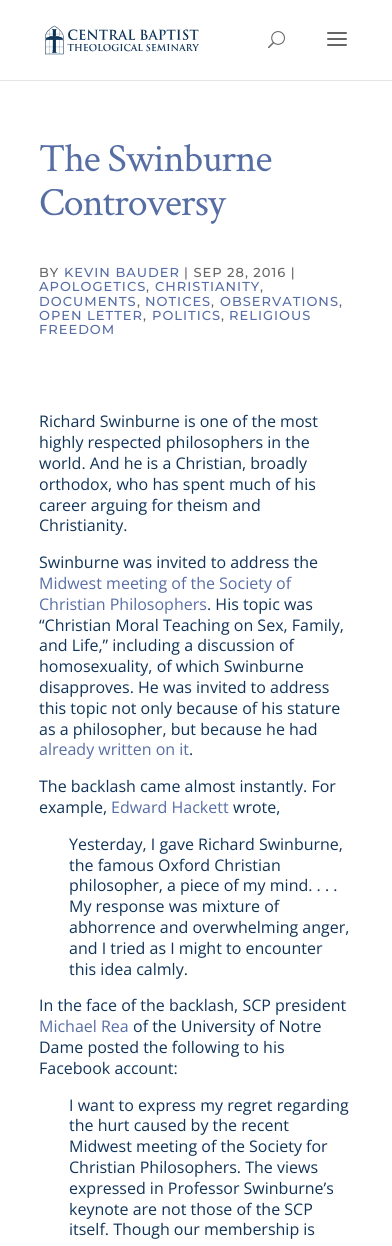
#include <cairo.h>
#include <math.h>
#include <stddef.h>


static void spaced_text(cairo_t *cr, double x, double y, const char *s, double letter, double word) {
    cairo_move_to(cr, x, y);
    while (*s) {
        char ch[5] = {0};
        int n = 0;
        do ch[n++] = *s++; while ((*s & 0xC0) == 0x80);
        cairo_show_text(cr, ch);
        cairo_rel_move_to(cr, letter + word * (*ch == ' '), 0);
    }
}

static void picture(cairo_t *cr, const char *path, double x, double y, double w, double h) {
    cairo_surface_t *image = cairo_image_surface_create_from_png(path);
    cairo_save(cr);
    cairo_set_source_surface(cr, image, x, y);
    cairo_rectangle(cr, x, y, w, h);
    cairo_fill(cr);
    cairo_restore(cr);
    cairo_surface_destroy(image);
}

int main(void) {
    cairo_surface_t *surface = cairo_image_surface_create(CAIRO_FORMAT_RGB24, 392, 1246);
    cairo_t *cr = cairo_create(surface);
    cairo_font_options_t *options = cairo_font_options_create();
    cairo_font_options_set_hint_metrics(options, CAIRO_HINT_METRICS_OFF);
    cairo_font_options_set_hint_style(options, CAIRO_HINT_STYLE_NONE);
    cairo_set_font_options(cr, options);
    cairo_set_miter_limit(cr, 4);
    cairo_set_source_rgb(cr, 1, 1, 1);
    cairo_paint(cr);
    cairo_set_source_rgb(cr, 0.902, 0.902, 0.902);
    cairo_rectangle(cr, 0, 80, 392, 1);
    cairo_fill(cr);
    picture(cr, "img1.png", 45, 25, 154, 30);
    picture(cr, "img2.png", 268, 31, 17, 18);
    picture(cr, "img3.png", 327, 32, 20, 14);
    cairo_select_font_face(cr, "Crimson Text", CAIRO_FONT_SLANT_NORMAL, CAIRO_FONT_WEIGHT_NORMAL);
    cairo_set_font_size(cr, 40);
    cairo_set_source_rgb(cr, 0.341, 0.431, 0.643);
    spaced_text(cr, 39, 171, "The Swinburne", -1, 0);
    spaced_text(cr, 39, 215, "Controversy", -1, 0);
    cairo_select_font_face(cr, "Montserrat Medium", CAIRO_FONT_SLANT_NORMAL, CAIRO_FONT_WEIGHT_NORMAL);
    cairo_set_font_size(cr, 13);
    cairo_set_source_rgb(cr, 0.4, 0.4, 0.4);
    spaced_text(cr, 39, 277, "BY", 1, 0);
    cairo_set_source_rgb(cr, 0.341, 0.431, 0.643);
    spaced_text(cr, 64, 277, "KEVIN BAUDER", 1, 0);
    cairo_set_source_rgb(cr, 0.4, 0.4, 0.4);
    spaced_text(cr, 184, 277, "| SEP 28, 2016 |", 1, 0);
    cairo_set_source_rgb(cr, 0.341, 0.431, 0.643);
    spaced_text(cr, 39, 291, "APOLOGETICS", 1, 0);
    cairo_set_source_rgb(cr, 0.4, 0.4, 0.4);
    spaced_text(cr, 146, 291, ",", 1, 0);
    cairo_set_source_rgb(cr, 0.341, 0.431, 0.643);
    spaced_text(cr, 155, 291, "CHRISTIANITY", 1, 0);
    cairo_set_source_rgb(cr, 0.4, 0.4, 0.4);
    spaced_text(cr, 260, 291, ",", 1, 0);
    cairo_set_source_rgb(cr, 0.341, 0.431, 0.643);
    spaced_text(cr, 39, 306, "DOCUMENTS", 1, 0);
    cairo_set_source_rgb(cr, 0.4, 0.4, 0.4);
    spaced_text(cr, 137, 306, ",", 1, 0);
    cairo_set_source_rgb(cr, 0.341, 0.431, 0.643);
    spaced_text(cr, 145, 306, "NOTICES", 1, 0);
    cairo_set_source_rgb(cr, 0.4, 0.4, 0.4);
    spaced_text(cr, 211, 306, ",", 1, 0);
    cairo_set_source_rgb(cr, 0.341, 0.431, 0.643);
    spaced_text(cr, 220, 306, "OBSERVATIONS", 1, 0);
    cairo_set_source_rgb(cr, 0.4, 0.4, 0.4);
    spaced_text(cr, 339, 306, ",", 1, 0);
    cairo_set_source_rgb(cr, 0.341, 0.431, 0.643);
    spaced_text(cr, 39, 320, "OPEN LETTER", 1, 0);
    cairo_set_source_rgb(cr, 0.4, 0.4, 0.4);
    spaced_text(cr, 143, 320, ",", 1, 0);
    cairo_set_source_rgb(cr, 0.341, 0.431, 0.643);
    spaced_text(cr, 152, 320, "POLITICS", 1, 0);
    cairo_set_source_rgb(cr, 0.4, 0.4, 0.4);
    spaced_text(cr, 221, 320, ",", 1, 0);
    cairo_set_source_rgb(cr, 0.341, 0.431, 0.643);
    spaced_text(cr, 229, 320, "RELIGIOUS", 1, 0);
    spaced_text(cr, 39, 334, "FREEDOM", 1, 0);
    cairo_select_font_face(cr, "Open Sans", CAIRO_FONT_SLANT_NORMAL, CAIRO_FONT_WEIGHT_NORMAL);
    cairo_set_font_size(cr, 16);
    cairo_set_source_rgb(cr, 0.067, 0.204, 0.349);
    cairo_move_to(cr, 39, 427);
    cairo_show_text(cr, "Richard Swinburne is one of the most");
    cairo_move_to(cr, 39, 448);
    cairo_show_text(cr, "highly respected philosophers in the");
    cairo_move_to(cr, 39, 469);
    cairo_show_text(cr, "world. And he is a Christian, broadly");
    cairo_move_to(cr, 39, 490);
    cairo_show_text(cr, "orthodox, who has spent much of his");
    cairo_move_to(cr, 39, 511);
    cairo_show_text(cr, "career arguing for theism and");
    cairo_move_to(cr, 39, 531);
    cairo_show_text(cr, "Christianity.");
    cairo_move_to(cr, 39, 568);
    cairo_show_text(cr, "Swinburne was invited to address the");
    cairo_set_source_rgb(cr, 0.341, 0.431, 0.643);
    cairo_move_to(cr, 39, 589);
    cairo_show_text(cr, "Midwest meeting of the Society of");
    cairo_move_to(cr, 39, 610);
    cairo_show_text(cr, "Christian Philosophers");
    cairo_set_source_rgb(cr, 0.067, 0.204, 0.349);
    cairo_move_to(cr, 207, 610);
    cairo_show_text(cr, ". His topic was");
    cairo_move_to(cr, 39, 631);
    cairo_show_text(cr, "“Christian Moral Teaching on Sex, Family,");
    cairo_move_to(cr, 39, 651);
    cairo_show_text(cr, "and Life,” including a discussion of");
    cairo_move_to(cr, 39, 672);
    cairo_show_text(cr, "homosexuality, of which Swinburne");
    cairo_move_to(cr, 39, 693);
    cairo_show_text(cr, "disapproves. He was invited to address");
    cairo_move_to(cr, 39, 714);
    cairo_show_text(cr, "this topic not only because of his stature");
    cairo_move_to(cr, 39, 735);
    cairo_show_text(cr, "as a philosopher, but because he had");
    cairo_set_source_rgb(cr, 0.341, 0.431, 0.643);
    cairo_move_to(cr, 39, 755);
    cairo_show_text(cr, "already written on it");
    cairo_set_source_rgb(cr, 0.067, 0.204, 0.349);
    cairo_move_to(cr, 189, 755);
    cairo_show_text(cr, ".");
    cairo_move_to(cr, 39, 792);
    cairo_show_text(cr, "The backlash came almost instantly. For");
    cairo_move_to(cr, 39, 813);
    cairo_show_text(cr, "example,");
    cairo_set_source_rgb(cr, 0.341, 0.431, 0.643);
    cairo_move_to(cr, 111, 813);
    cairo_show_text(cr, "Edward Hackett");
    cairo_set_source_rgb(cr, 0.067, 0.204, 0.349);
    cairo_move_to(cr, 233, 813);
    cairo_show_text(cr, "wrote,");
    cairo_move_to(cr, 69, 850);
    cairo_show_text(cr, "Yesterday, I gave Richard Swinburne,");
    cairo_move_to(cr, 69, 871);
    cairo_show_text(cr, "the famous Oxford Christian");
    cairo_move_to(cr, 69, 891);
    cairo_show_text(cr, "philosopher, a piece of my mind. . . .");
    cairo_move_to(cr, 69, 912);
    cairo_show_text(cr, "My response was mixture of");
    cairo_move_to(cr, 69, 933);
    cairo_show_text(cr, "abhorrence and overwhelming anger,");
    cairo_move_to(cr, 69, 954);
    cairo_show_text(cr, "and I tried as I might to encounter");
    cairo_move_to(cr, 69, 975);
    cairo_show_text(cr, "this idea calmly.");
    cairo_move_to(cr, 39, 1011);
    cairo_show_text(cr, "In the face of the backlash, SCP president");
    cairo_set_source_rgb(cr, 0.341, 0.431, 0.643);
    cairo_move_to(cr, 39, 1032);
    cairo_show_text(cr, "Michael Rea");
    cairo_set_source_rgb(cr, 0.067, 0.204, 0.349);
    cairo_move_to(cr, 133, 1032);
    cairo_show_text(cr, "of the University of Notre");
    cairo_move_to(cr, 39, 1053);
    cairo_show_text(cr, "Dame posted the following to his");
    cairo_move_to(cr, 39, 1074);
    cairo_show_text(cr, "Facebook account:");
    cairo_move_to(cr, 69, 1111);
    cairo_show_text(cr, "I want to express my regret regarding");
    cairo_move_to(cr, 69, 1131);
    cairo_show_text(cr, "the hurt caused by the recent");
    cairo_move_to(cr, 69, 1152);
    cairo_show_text(cr, "Midwest meeting of the Society for");
    cairo_move_to(cr, 69, 1173);
    cairo_show_text(cr, "Christian Philosophers. The views");
    cairo_move_to(cr, 69, 1194);
    cairo_show_text(cr, "expressed in Professor Swinburne’s");
    cairo_move_to(cr, 69, 1215);
    cairo_show_text(cr, "keynote are not those of the SCP");
    cairo_move_to(cr, 69, 1235);
    cairo_show_text(cr, "itself. Though our membership is");
    cairo_surface_write_to_png(surface, "page.png");
    cairo_font_options_destroy(options);
    cairo_destroy(cr);
    cairo_surface_destroy(surface);
    return 0;
}
